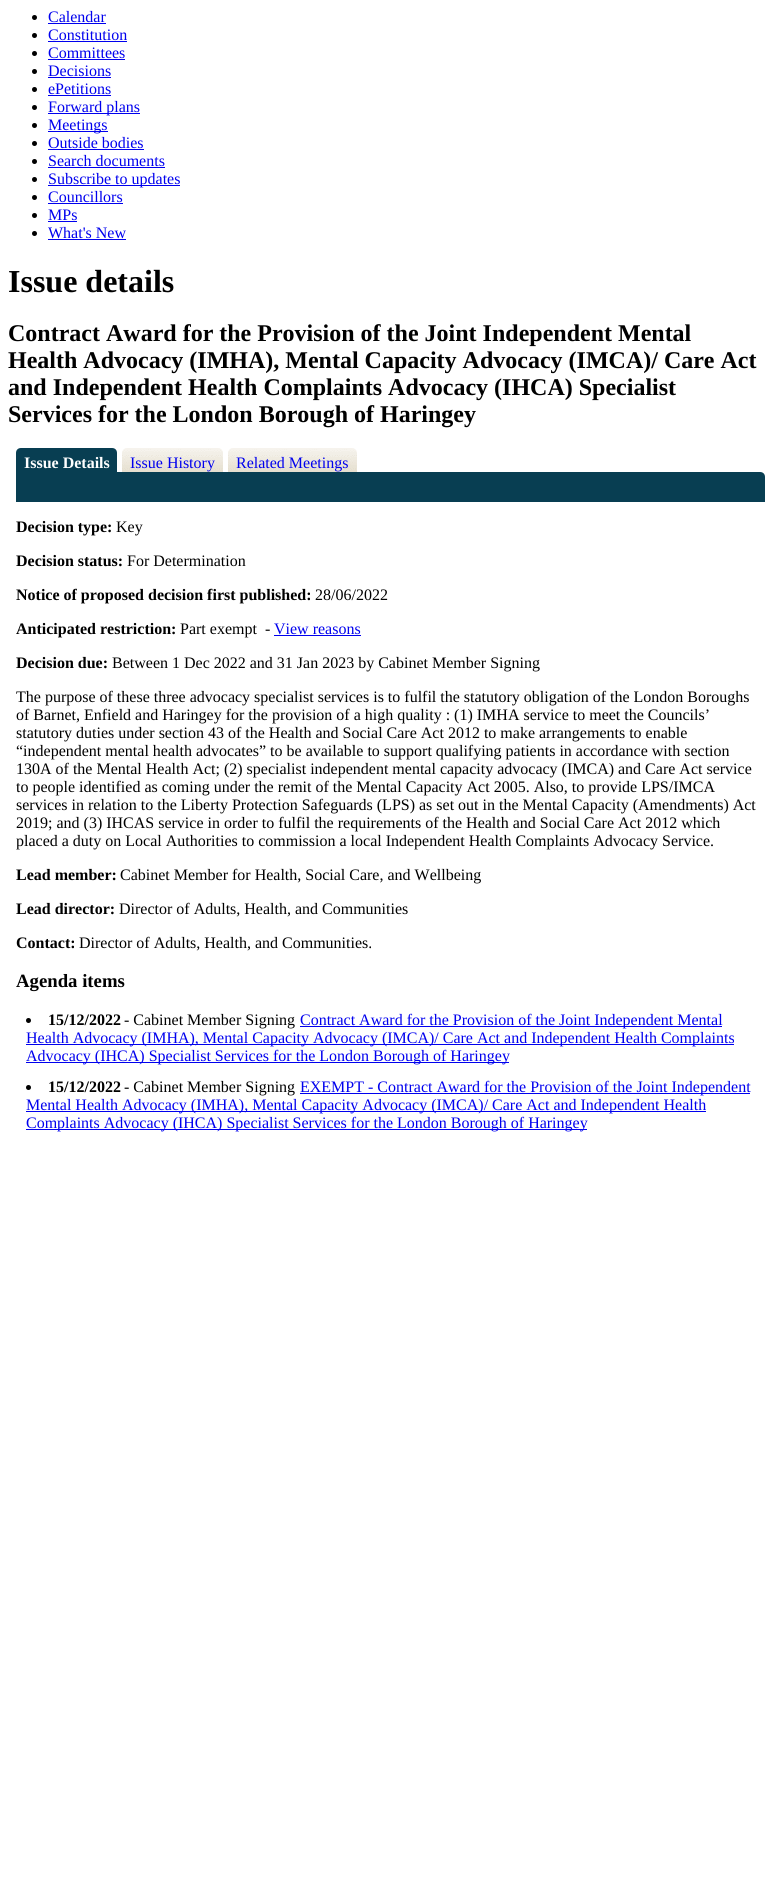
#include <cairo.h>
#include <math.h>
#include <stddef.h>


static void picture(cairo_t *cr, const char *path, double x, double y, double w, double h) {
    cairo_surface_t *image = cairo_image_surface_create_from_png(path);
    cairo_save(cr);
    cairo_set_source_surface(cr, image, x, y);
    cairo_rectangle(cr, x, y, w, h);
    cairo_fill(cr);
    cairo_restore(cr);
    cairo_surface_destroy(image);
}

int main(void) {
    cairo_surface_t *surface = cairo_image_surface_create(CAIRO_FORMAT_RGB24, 773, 1887);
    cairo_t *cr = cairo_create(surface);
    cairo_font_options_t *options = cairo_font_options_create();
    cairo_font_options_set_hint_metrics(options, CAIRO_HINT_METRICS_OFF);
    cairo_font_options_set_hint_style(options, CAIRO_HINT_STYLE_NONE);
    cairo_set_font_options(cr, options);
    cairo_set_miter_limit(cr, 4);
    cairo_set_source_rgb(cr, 1, 1, 1);
    cairo_paint(cr);
    cairo_set_source_rgb(cr, 0, 0, 0);
    cairo_arc(cr, 34.5, 17.5, 2.5, 0, 2 * M_PI);
    cairo_fill(cr);
    cairo_select_font_face(cr, "Liberation Serif", CAIRO_FONT_SLANT_NORMAL, CAIRO_FONT_WEIGHT_NORMAL);
    cairo_set_font_size(cr, 16);
    cairo_set_source_rgb(cr, 0, 0, 0.933);
    cairo_move_to(cr, 48, 22);
    cairo_show_text(cr, "Calendar");
    cairo_rectangle(cr, 48, 23, 58, 1);
    cairo_fill(cr);
    cairo_set_source_rgb(cr, 0, 0, 0);
    cairo_arc(cr, 34.5, 35.5, 2.5, 0, 2 * M_PI);
    cairo_fill(cr);
    cairo_set_source_rgb(cr, 0, 0, 0.933);
    cairo_move_to(cr, 48, 40);
    cairo_show_text(cr, "Constitution");
    cairo_rectangle(cr, 48, 41, 79, 1);
    cairo_fill(cr);
    cairo_set_source_rgb(cr, 0, 0, 0);
    cairo_arc(cr, 34.5, 53.5, 2.5, 0, 2 * M_PI);
    cairo_fill(cr);
    cairo_set_source_rgb(cr, 0, 0, 0.933);
    cairo_move_to(cr, 48, 58);
    cairo_show_text(cr, "Committees");
    cairo_rectangle(cr, 48, 59, 77, 1);
    cairo_fill(cr);
    cairo_set_source_rgb(cr, 0, 0, 0);
    cairo_arc(cr, 34.5, 71.5, 2.5, 0, 2 * M_PI);
    cairo_fill(cr);
    cairo_set_source_rgb(cr, 0, 0, 0.933);
    cairo_move_to(cr, 48, 76);
    cairo_show_text(cr, "Decisions");
    cairo_rectangle(cr, 48, 77, 63, 1);
    cairo_fill(cr);
    cairo_set_source_rgb(cr, 0, 0, 0);
    cairo_arc(cr, 34.5, 89.5, 2.5, 0, 2 * M_PI);
    cairo_fill(cr);
    cairo_set_source_rgb(cr, 0, 0, 0.933);
    cairo_move_to(cr, 48, 94);
    cairo_show_text(cr, "ePetitions");
    cairo_rectangle(cr, 48, 95, 63, 1);
    cairo_fill(cr);
    cairo_set_source_rgb(cr, 0, 0, 0);
    cairo_arc(cr, 34.5, 107.5, 2.5, 0, 2 * M_PI);
    cairo_fill(cr);
    cairo_set_source_rgb(cr, 0, 0, 0.933);
    cairo_rectangle(cr, 48, 113, 92, 1);
    cairo_fill(cr);
    cairo_move_to(cr, 48, 112);
    cairo_show_text(cr, "Forward plans");
    cairo_set_source_rgb(cr, 0, 0, 0);
    cairo_new_path(cr);
    cairo_arc(cr, 34.5, 125.5, 2.5, 0, 2 * M_PI);
    cairo_fill(cr);
    cairo_set_source_rgb(cr, 0, 0, 0.933);
    cairo_rectangle(cr, 48, 131, 60, 1);
    cairo_fill(cr);
    cairo_move_to(cr, 48, 130);
    cairo_show_text(cr, "Meetings");
    cairo_set_source_rgb(cr, 0, 0, 0);
    cairo_new_path(cr);
    cairo_arc(cr, 34.5, 143.5, 2.5, 0, 2 * M_PI);
    cairo_fill(cr);
    cairo_set_source_rgb(cr, 0, 0, 0.933);
    cairo_move_to(cr, 48, 148);
    cairo_show_text(cr, "Outside bodies");
    cairo_rectangle(cr, 48, 149, 96, 1);
    cairo_fill(cr);
    cairo_set_source_rgb(cr, 0, 0, 0);
    cairo_arc(cr, 34.5, 161.5, 2.5, 0, 2 * M_PI);
    cairo_fill(cr);
    cairo_set_source_rgb(cr, 0, 0, 0.933);
    cairo_move_to(cr, 48, 166);
    cairo_show_text(cr, "Search documents");
    cairo_rectangle(cr, 48, 167, 117, 1);
    cairo_fill(cr);
    cairo_set_source_rgb(cr, 0, 0, 0);
    cairo_arc(cr, 34.5, 179.5, 2.5, 0, 2 * M_PI);
    cairo_fill(cr);
    cairo_set_source_rgb(cr, 0, 0, 0.933);
    cairo_rectangle(cr, 48, 185, 132, 1);
    cairo_fill(cr);
    cairo_move_to(cr, 48, 184);
    cairo_show_text(cr, "Subscribe to updates");
    cairo_set_source_rgb(cr, 0, 0, 0);
    cairo_new_path(cr);
    cairo_arc(cr, 34.5, 197.5, 2.5, 0, 2 * M_PI);
    cairo_fill(cr);
    cairo_set_source_rgb(cr, 0, 0, 0.933);
    cairo_move_to(cr, 48, 202);
    cairo_show_text(cr, "Councillors");
    cairo_rectangle(cr, 48, 203, 75, 1);
    cairo_fill(cr);
    cairo_set_source_rgb(cr, 0, 0, 0);
    cairo_arc(cr, 34.5, 215.5, 2.5, 0, 2 * M_PI);
    cairo_fill(cr);
    cairo_set_source_rgb(cr, 0, 0, 0.933);
    cairo_move_to(cr, 48, 220);
    cairo_show_text(cr, "MPs");
    cairo_rectangle(cr, 48, 221, 29, 1);
    cairo_fill(cr);
    cairo_set_source_rgb(cr, 0, 0, 0);
    cairo_arc(cr, 34.5, 233.5, 2.5, 0, 2 * M_PI);
    cairo_fill(cr);
    cairo_set_source_rgb(cr, 0, 0, 0.933);
    cairo_move_to(cr, 48, 238);
    cairo_show_text(cr, "What's New");
    cairo_rectangle(cr, 48, 239, 78, 1);
    cairo_fill(cr);
    cairo_select_font_face(cr, "Liberation Serif", CAIRO_FONT_SLANT_NORMAL, CAIRO_FONT_WEIGHT_BOLD);
    cairo_set_font_size(cr, 32);
    cairo_set_source_rgb(cr, 0, 0, 0);
    cairo_move_to(cr, 8, 292);
    cairo_show_text(cr, "Issue details");
    cairo_set_font_size(cr, 24);
    cairo_move_to(cr, 8, 341);
    cairo_show_text(cr, "Contract Award for the Provision of the Joint Independent Mental");
    cairo_move_to(cr, 8, 368);
    cairo_show_text(cr, "Health Advocacy (IMHA), Mental Capacity Advocacy (IMCA)/ Care Act");
    cairo_move_to(cr, 8, 395);
    cairo_show_text(cr, "and Independent Health Complaints Advocacy (IHCA) Specialist");
    cairo_move_to(cr, 8, 422);
    cairo_show_text(cr, "Services for the London Borough of Haringey");
    cairo_set_source_rgb(cr, 0.035, 0.243, 0.322);
    cairo_new_path(cr);
    cairo_move_to(cr, 21, 448);
    cairo_line_to(cr, 112, 448);
    cairo_curve_to(cr, 115, 448, 117, 450, 117, 453);
    cairo_line_to(cr, 117, 472);
    cairo_line_to(cr, 16, 472);
    cairo_line_to(cr, 16, 453);
    cairo_curve_to(cr, 16, 450, 18, 448, 21, 448);
    cairo_close_path(cr);
    cairo_fill(cr);
    cairo_set_font_size(cr, 16);
    cairo_set_source_rgb(cr, 1, 1, 1);
    cairo_move_to(cr, 24, 468);
    cairo_show_text(cr, "Issue Details");
    picture(cr, "img1.png", 122, 448, 101, 24);
    cairo_select_font_face(cr, "Liberation Serif", CAIRO_FONT_SLANT_NORMAL, CAIRO_FONT_WEIGHT_NORMAL);
    cairo_set_source_rgb(cr, 0, 0, 0.933);
    cairo_move_to(cr, 130, 468);
    cairo_show_text(cr, "Issue History");
    picture(cr, "img2.png", 228, 448, 129, 24);
    cairo_move_to(cr, 236, 468);
    cairo_show_text(cr, "Related Meetings");
    cairo_set_source_rgb(cr, 0.035, 0.243, 0.322);
    cairo_new_path(cr);
    cairo_move_to(cr, 16, 472);
    cairo_line_to(cr, 760, 472);
    cairo_curve_to(cr, 763, 472, 765, 474, 765, 477);
    cairo_line_to(cr, 765, 502);
    cairo_line_to(cr, 16, 502);
    cairo_close_path(cr);
    cairo_fill(cr);
    cairo_select_font_face(cr, "Liberation Serif", CAIRO_FONT_SLANT_NORMAL, CAIRO_FONT_WEIGHT_BOLD);
    cairo_set_source_rgb(cr, 0, 0, 0);
    cairo_move_to(cr, 16, 532);
    cairo_show_text(cr, "Decision type:");
    cairo_select_font_face(cr, "Liberation Serif", CAIRO_FONT_SLANT_NORMAL, CAIRO_FONT_WEIGHT_NORMAL);
    cairo_move_to(cr, 116, 532);
    cairo_show_text(cr, "Key");
    cairo_select_font_face(cr, "Liberation Serif", CAIRO_FONT_SLANT_NORMAL, CAIRO_FONT_WEIGHT_BOLD);
    cairo_move_to(cr, 16, 566);
    cairo_show_text(cr, "Decision status:");
    cairo_select_font_face(cr, "Liberation Serif", CAIRO_FONT_SLANT_NORMAL, CAIRO_FONT_WEIGHT_NORMAL);
    cairo_move_to(cr, 127, 566);
    cairo_show_text(cr, "For Determination");
    cairo_select_font_face(cr, "Liberation Serif", CAIRO_FONT_SLANT_NORMAL, CAIRO_FONT_WEIGHT_BOLD);
    cairo_move_to(cr, 16, 600);
    cairo_show_text(cr, "Notice of proposed decision first published:");
    cairo_select_font_face(cr, "Liberation Serif", CAIRO_FONT_SLANT_NORMAL, CAIRO_FONT_WEIGHT_NORMAL);
    cairo_move_to(cr, 315, 600);
    cairo_show_text(cr, "28/06/2022");
    cairo_select_font_face(cr, "Liberation Serif", CAIRO_FONT_SLANT_NORMAL, CAIRO_FONT_WEIGHT_BOLD);
    cairo_move_to(cr, 16, 634);
    cairo_show_text(cr, "Anticipated restriction:");
    cairo_select_font_face(cr, "Liberation Serif", CAIRO_FONT_SLANT_NORMAL, CAIRO_FONT_WEIGHT_NORMAL);
    cairo_move_to(cr, 180, 634);
    cairo_show_text(cr, "Part exempt");
    cairo_move_to(cr, 265, 634);
    cairo_show_text(cr, "-");
    cairo_set_source_rgb(cr, 0, 0, 0.933);
    cairo_move_to(cr, 274, 634);
    cairo_show_text(cr, "View reasons");
    cairo_rectangle(cr, 274, 635, 87, 1);
    cairo_fill(cr);
    cairo_select_font_face(cr, "Liberation Serif", CAIRO_FONT_SLANT_NORMAL, CAIRO_FONT_WEIGHT_BOLD);
    cairo_set_source_rgb(cr, 0, 0, 0);
    cairo_move_to(cr, 16, 668);
    cairo_show_text(cr, "Decision due:");
    cairo_select_font_face(cr, "Liberation Serif", CAIRO_FONT_SLANT_NORMAL, CAIRO_FONT_WEIGHT_NORMAL);
    cairo_move_to(cr, 112, 668);
    cairo_show_text(cr, "Between 1 Dec 2022 and 31 Jan 2023 by Cabinet Member Signing");
    cairo_move_to(cr, 16, 702);
    cairo_show_text(cr, "The purpose of these three advocacy specialist services is to fulfil the statutory obligation of the London Boroughs");
    cairo_move_to(cr, 16, 720);
    cairo_show_text(cr, "of Barnet, Enfield and Haringey for the provision of a high quality : (1) IMHA service to meet the Councils’");
    cairo_move_to(cr, 16, 738);
    cairo_show_text(cr, "statutory duties under section 43 of the Health and Social Care Act 2012 to make arrangements to enable");
    cairo_move_to(cr, 16, 756);
    cairo_show_text(cr, "“independent mental health advocates” to be available to support qualifying patients in accordance with section");
    cairo_move_to(cr, 16, 774);
    cairo_show_text(cr, "130A of the Mental Health Act; (2) specialist independent mental capacity advocacy (IMCA) and Care Act service");
    cairo_move_to(cr, 16, 792);
    cairo_show_text(cr, "to people identified as coming under the remit of the Mental Capacity Act 2005. Also, to provide LPS/IMCA");
    cairo_move_to(cr, 16, 810);
    cairo_show_text(cr, "services in relation to the Liberty Protection Safeguards (LPS) as set out in the Mental Capacity (Amendments) Act");
    cairo_move_to(cr, 16, 828);
    cairo_show_text(cr, "2019; and (3) IHCAS service in order to fulfil the requirements of the Health and Social Care Act 2012 which");
    cairo_move_to(cr, 16, 846);
    cairo_show_text(cr, "placed a duty on Local Authorities to commission a local Independent Health Complaints Advocacy Service.");
    cairo_select_font_face(cr, "Liberation Serif", CAIRO_FONT_SLANT_NORMAL, CAIRO_FONT_WEIGHT_BOLD);
    cairo_move_to(cr, 16, 880);
    cairo_show_text(cr, "Lead member:");
    cairo_select_font_face(cr, "Liberation Serif", CAIRO_FONT_SLANT_NORMAL, CAIRO_FONT_WEIGHT_NORMAL);
    cairo_move_to(cr, 120, 880);
    cairo_show_text(cr, "Cabinet Member for Health, Social Care, and Wellbeing");
    cairo_select_font_face(cr, "Liberation Serif", CAIRO_FONT_SLANT_NORMAL, CAIRO_FONT_WEIGHT_BOLD);
    cairo_move_to(cr, 16, 914);
    cairo_show_text(cr, "Lead director:");
    cairo_select_font_face(cr, "Liberation Serif", CAIRO_FONT_SLANT_NORMAL, CAIRO_FONT_WEIGHT_NORMAL);
    cairo_move_to(cr, 119, 914);
    cairo_show_text(cr, "Director of Adults, Health, and Communities");
    cairo_select_font_face(cr, "Liberation Serif", CAIRO_FONT_SLANT_NORMAL, CAIRO_FONT_WEIGHT_BOLD);
    cairo_move_to(cr, 16, 948);
    cairo_show_text(cr, "Contact:");
    cairo_select_font_face(cr, "Liberation Serif", CAIRO_FONT_SLANT_NORMAL, CAIRO_FONT_WEIGHT_NORMAL);
    cairo_move_to(cr, 79, 948);
    cairo_show_text(cr, "Director of Adults, Health, and Communities.");
    cairo_select_font_face(cr, "Liberation Serif", CAIRO_FONT_SLANT_NORMAL, CAIRO_FONT_WEIGHT_BOLD);
    cairo_set_font_size(cr, 18.75);
    cairo_move_to(cr, 16, 987);
    cairo_show_text(cr, "Agenda items");
    cairo_new_path(cr);
    cairo_arc(cr, 28.5, 1020.5, 2.5, 0, 2 * M_PI);
    cairo_fill(cr);
    cairo_set_font_size(cr, 16);
    cairo_move_to(cr, 48, 1025);
    cairo_show_text(cr, "15/12/2022");
    cairo_select_font_face(cr, "Liberation Serif", CAIRO_FONT_SLANT_NORMAL, CAIRO_FONT_WEIGHT_NORMAL);
    cairo_move_to(cr, 124, 1025);
    cairo_show_text(cr, "- Cabinet Member Signing");
    cairo_set_source_rgb(cr, 0, 0, 0.933);
    cairo_rectangle(cr, 300, 1026, 422, 1);
    cairo_fill(cr);
    cairo_move_to(cr, 300, 1025);
    cairo_show_text(cr, "Contract Award for the Provision of the Joint Independent Mental");
    cairo_rectangle(cr, 26, 1044, 708, 1);
    cairo_fill(cr);
    cairo_move_to(cr, 26, 1043);
    cairo_show_text(cr, "Health Advocacy (IMHA), Mental Capacity Advocacy (IMCA)/ Care Act and Independent Health Complaints");
    cairo_rectangle(cr, 26, 1062, 483, 1);
    cairo_fill(cr);
    cairo_move_to(cr, 26, 1061);
    cairo_show_text(cr, "Advocacy (IHCA) Specialist Services for the London Borough of Haringey");
    cairo_set_source_rgb(cr, 0, 0, 0);
    cairo_new_path(cr);
    cairo_arc(cr, 28.5, 1087.5, 2.5, 0, 2 * M_PI);
    cairo_fill(cr);
    cairo_select_font_face(cr, "Liberation Serif", CAIRO_FONT_SLANT_NORMAL, CAIRO_FONT_WEIGHT_BOLD);
    cairo_move_to(cr, 48, 1092);
    cairo_show_text(cr, "15/12/2022");
    cairo_select_font_face(cr, "Liberation Serif", CAIRO_FONT_SLANT_NORMAL, CAIRO_FONT_WEIGHT_NORMAL);
    cairo_move_to(cr, 124, 1092);
    cairo_show_text(cr, "- Cabinet Member Signing");
    cairo_set_source_rgb(cr, 0, 0, 0.933);
    cairo_rectangle(cr, 300, 1093, 450, 1);
    cairo_fill(cr);
    cairo_move_to(cr, 300, 1092);
    cairo_show_text(cr, "EXEMPT - Contract Award for the Provision of the Joint Independent");
    cairo_rectangle(cr, 26, 1111, 680, 1);
    cairo_fill(cr);
    cairo_move_to(cr, 26, 1110);
    cairo_show_text(cr, "Mental Health Advocacy (IMHA), Mental Capacity Advocacy (IMCA)/ Care Act and Independent Health");
    cairo_rectangle(cr, 26, 1129, 561, 1);
    cairo_fill(cr);
    cairo_move_to(cr, 26, 1128);
    cairo_show_text(cr, "Complaints Advocacy (IHCA) Specialist Services for the London Borough of Haringey");
    cairo_surface_write_to_png(surface, "page.png");
    cairo_font_options_destroy(options);
    cairo_destroy(cr);
    cairo_surface_destroy(surface);
    return 0;
}
